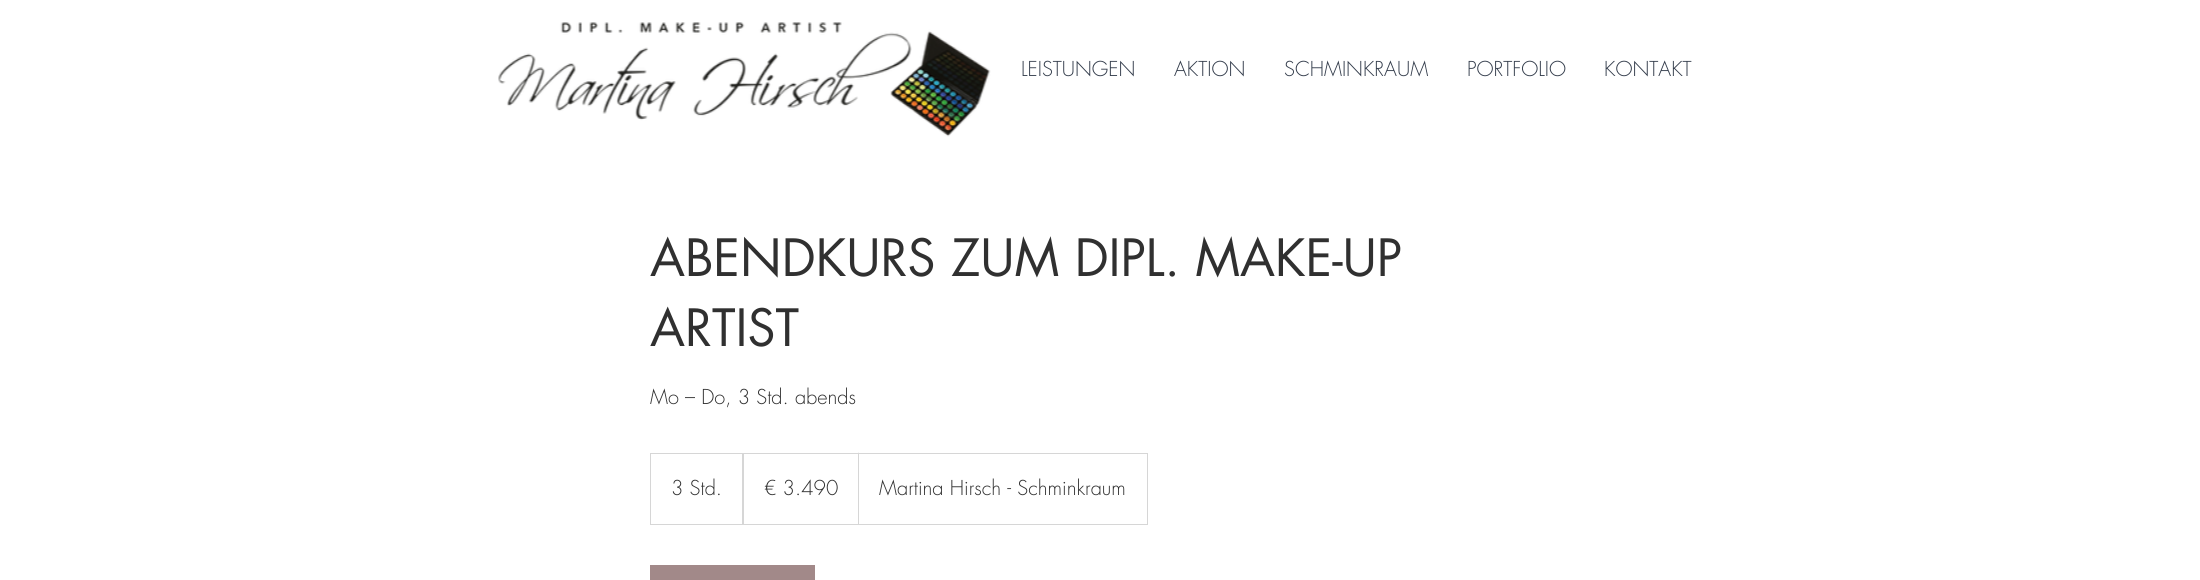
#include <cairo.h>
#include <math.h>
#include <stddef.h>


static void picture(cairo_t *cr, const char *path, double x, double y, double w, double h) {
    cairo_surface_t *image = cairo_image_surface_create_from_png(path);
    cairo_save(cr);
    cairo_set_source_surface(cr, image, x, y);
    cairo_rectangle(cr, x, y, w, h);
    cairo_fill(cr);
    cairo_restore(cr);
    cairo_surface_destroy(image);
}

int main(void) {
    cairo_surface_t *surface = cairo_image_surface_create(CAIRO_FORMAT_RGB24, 2200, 580);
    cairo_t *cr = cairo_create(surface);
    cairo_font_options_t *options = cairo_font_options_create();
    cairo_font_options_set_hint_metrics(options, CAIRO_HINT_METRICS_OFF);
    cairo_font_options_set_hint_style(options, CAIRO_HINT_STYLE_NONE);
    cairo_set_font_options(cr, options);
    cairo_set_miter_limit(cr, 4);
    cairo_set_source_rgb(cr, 1, 1, 1);
    cairo_paint(cr);
    picture(cr, "img1.png", 498, 22, 493, 115);
    cairo_select_font_face(cr, "futura Light", CAIRO_FONT_SLANT_NORMAL, CAIRO_FONT_WEIGHT_NORMAL);
    cairo_set_font_size(cr, 20);
    cairo_set_source_rgb(cr, 0.2, 0.235, 0.294);
    cairo_move_to(cr, 1021, 76);
    cairo_show_text(cr, "LEISTUNGEN");
    cairo_move_to(cr, 1174, 76);
    cairo_show_text(cr, "AKTION");
    cairo_move_to(cr, 1284, 76);
    cairo_show_text(cr, "SCHMINKRAUM");
    cairo_move_to(cr, 1467, 76);
    cairo_show_text(cr, "PORTFOLIO");
    cairo_move_to(cr, 1604, 76);
    cairo_show_text(cr, "KONTAKT");
    cairo_select_font_face(cr, "futura", CAIRO_FONT_SLANT_NORMAL, CAIRO_FONT_WEIGHT_NORMAL);
    cairo_set_font_size(cr, 50);
    cairo_set_source_rgb(cr, 0.188, 0.188, 0.188);
    cairo_move_to(cr, 650, 276);
    cairo_show_text(cr, "ABENDKURS ZUM DIPL. MAKE-UP");
    cairo_move_to(cr, 650, 346);
    cairo_show_text(cr, "ARTIST");
    cairo_select_font_face(cr, "futura Light", CAIRO_FONT_SLANT_NORMAL, CAIRO_FONT_WEIGHT_NORMAL);
    cairo_set_font_size(cr, 20);
    cairo_move_to(cr, 650, 404);
    cairo_show_text(cr, "Mo – Do, 3 Std. abends");
    cairo_rectangle(cr, 650.5, 453.5, 497, 71);
    cairo_set_source_rgb(cr, 0.839, 0.839, 0.839);
    cairo_set_line_width(cr, 1);
    cairo_stroke(cr);
    cairo_set_source_rgb(cr, 0.188, 0.188, 0.188);
    cairo_move_to(cr, 671, 495);
    cairo_show_text(cr, "3 Std.");
    cairo_save(cr);
    cairo_rectangle(cr, 651, 454, 495, 70);
    cairo_clip(cr);
    cairo_set_source_rgb(cr, 0.839, 0.839, 0.839);
    cairo_new_path(cr);
    cairo_move_to(cr, 742, 524);
    cairo_line_to(cr, 742, 452);
    cairo_line_to(cr, 744, 454);
    cairo_line_to(cr, 744, 524);
    cairo_close_path(cr);
    cairo_fill(cr);
    cairo_restore(cr);
    cairo_move_to(cr, 764, 495);
    cairo_show_text(cr, "€ 3.490");
    cairo_set_source_rgb(cr, 0.839, 0.839, 0.839);
    cairo_new_path(cr);
    cairo_move_to(cr, 858, 524);
    cairo_line_to(cr, 858, 452);
    cairo_line_to(cr, 859, 454);
    cairo_line_to(cr, 859, 524);
    cairo_close_path(cr);
    cairo_fill(cr);
    cairo_set_source_rgb(cr, 0.188, 0.188, 0.188);
    cairo_move_to(cr, 879, 495);
    cairo_show_text(cr, "Martina Hirsch - Schminkraum");
    cairo_set_source_rgb(cr, 0.635, 0.537, 0.537);
    cairo_rectangle(cr, 650, 565, 165, 15);
    cairo_fill(cr);
    cairo_surface_write_to_png(surface, "page.png");
    cairo_font_options_destroy(options);
    cairo_destroy(cr);
    cairo_surface_destroy(surface);
    return 0;
}
